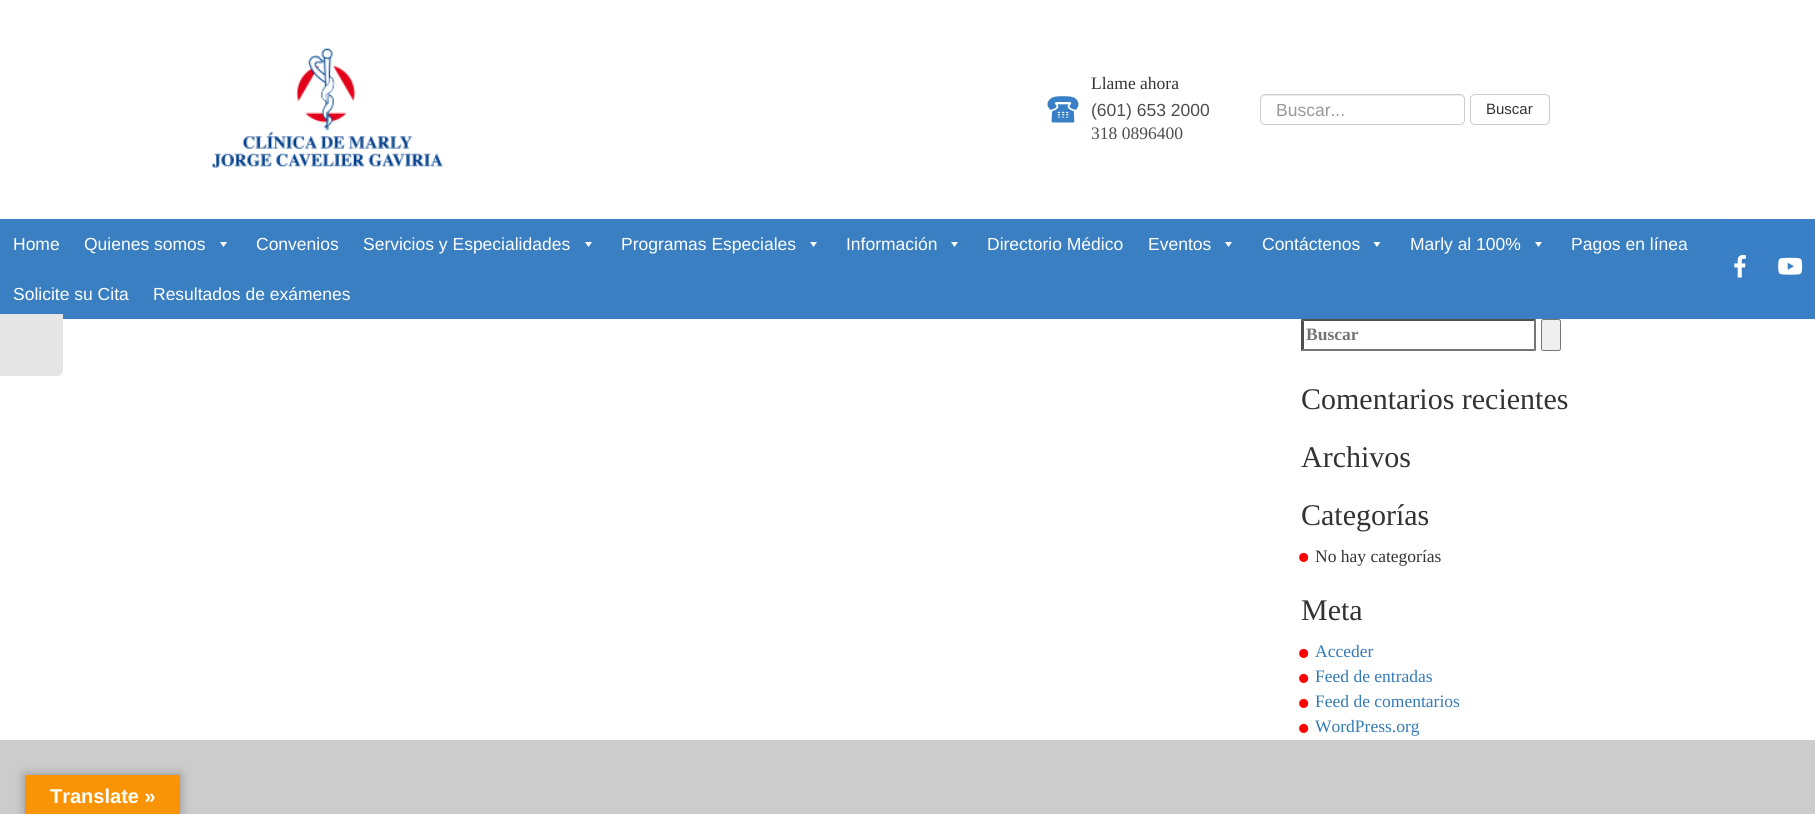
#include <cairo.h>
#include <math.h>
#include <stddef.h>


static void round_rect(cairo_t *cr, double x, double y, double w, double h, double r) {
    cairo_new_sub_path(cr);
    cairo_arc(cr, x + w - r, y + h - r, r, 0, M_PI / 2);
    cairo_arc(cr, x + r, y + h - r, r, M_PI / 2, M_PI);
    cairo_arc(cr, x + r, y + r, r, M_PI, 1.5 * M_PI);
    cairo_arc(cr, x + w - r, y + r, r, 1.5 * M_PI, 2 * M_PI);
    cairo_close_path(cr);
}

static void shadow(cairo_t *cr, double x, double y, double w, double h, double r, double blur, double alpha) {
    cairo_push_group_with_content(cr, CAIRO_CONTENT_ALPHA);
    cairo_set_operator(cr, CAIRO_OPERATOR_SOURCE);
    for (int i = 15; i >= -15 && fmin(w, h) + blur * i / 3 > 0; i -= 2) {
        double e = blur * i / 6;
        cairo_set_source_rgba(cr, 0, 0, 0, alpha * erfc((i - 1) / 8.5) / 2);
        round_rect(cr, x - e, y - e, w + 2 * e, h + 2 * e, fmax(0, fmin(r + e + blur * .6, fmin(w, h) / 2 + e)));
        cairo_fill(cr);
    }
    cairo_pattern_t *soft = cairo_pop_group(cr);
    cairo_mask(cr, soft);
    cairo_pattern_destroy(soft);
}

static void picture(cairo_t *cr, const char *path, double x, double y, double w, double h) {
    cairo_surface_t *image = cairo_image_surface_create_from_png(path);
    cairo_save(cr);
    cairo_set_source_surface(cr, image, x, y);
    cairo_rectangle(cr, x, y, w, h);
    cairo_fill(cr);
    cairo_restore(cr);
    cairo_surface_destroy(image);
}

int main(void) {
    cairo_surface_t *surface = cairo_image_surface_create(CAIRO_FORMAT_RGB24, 1815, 814);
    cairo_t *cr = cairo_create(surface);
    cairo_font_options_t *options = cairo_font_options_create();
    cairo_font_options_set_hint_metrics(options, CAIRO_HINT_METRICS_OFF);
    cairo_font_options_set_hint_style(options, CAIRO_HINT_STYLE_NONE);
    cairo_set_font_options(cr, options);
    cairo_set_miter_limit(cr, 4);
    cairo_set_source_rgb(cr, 1, 1, 1);
    cairo_paint(cr);
    picture(cr, "img1.png", 212, 48, 231, 120);
    picture(cr, "img2.png", 1047, 96, 32, 27);
    cairo_select_font_face(cr, "Liberation Serif", CAIRO_FONT_SLANT_NORMAL, CAIRO_FONT_WEIGHT_NORMAL);
    cairo_set_font_size(cr, 17.5);
    cairo_set_source_rgb(cr, 0.2, 0.2, 0.2);
    cairo_move_to(cr, 1091, 89);
    cairo_show_text(cr, "Llame ahora");
    cairo_select_font_face(cr, "Liberation Sans", CAIRO_FONT_SLANT_NORMAL, CAIRO_FONT_WEIGHT_NORMAL);
    cairo_set_source_rgb(cr, 0.302, 0.302, 0.302);
    cairo_move_to(cr, 1091, 116);
    cairo_show_text(cr, "(601) 653 2000");
    cairo_select_font_face(cr, "Liberation Serif", CAIRO_FONT_SLANT_NORMAL, CAIRO_FONT_WEIGHT_NORMAL);
    cairo_move_to(cr, 1091, 139);
    cairo_show_text(cr, "318 0896400");
    cairo_set_source_rgb(cr, 0.925, 0.925, 0.925);
    cairo_new_path(cr);
    cairo_move_to(cr, 1265, 96);
    cairo_line_to(cr, 1460, 96);
    cairo_curve_to(cr, 1462, 96, 1464, 98, 1464, 100);
    cairo_line_to(cr, 1464, 99);
    cairo_curve_to(cr, 1464, 97, 1462, 95, 1460, 95);
    cairo_line_to(cr, 1265, 95);
    cairo_curve_to(cr, 1263, 95, 1261, 97, 1261, 99);
    cairo_line_to(cr, 1261, 100);
    cairo_curve_to(cr, 1261, 98, 1263, 96, 1265, 96);
    cairo_close_path(cr);
    cairo_fill(cr);
    round_rect(cr, 1260.5, 94.5, 204, 30, 4.5);
    cairo_set_source_rgb(cr, 0.8, 0.8, 0.8);
    cairo_set_line_width(cr, 1);
    cairo_stroke(cr);
    cairo_select_font_face(cr, "Liberation Sans", CAIRO_FONT_SLANT_NORMAL, CAIRO_FONT_WEIGHT_NORMAL);
    cairo_set_source_rgb(cr, 0.6, 0.6, 0.6);
    cairo_move_to(cr, 1276, 116);
    cairo_show_text(cr, "Buscar...");
    round_rect(cr, 1470.5, 94.5, 79, 30, 4.5);
    cairo_set_source_rgb(cr, 0.8, 0.8, 0.8);
    cairo_stroke(cr);
    cairo_set_font_size(cr, 15);
    cairo_set_source_rgb(cr, 0.2, 0.2, 0.2);
    cairo_move_to(cr, 1486, 114);
    cairo_show_text(cr, "Buscar");
    cairo_set_source_rgb(cr, 0.224, 0.498, 0.757);
    cairo_rectangle(cr, 0, 219, 1715, 100);
    cairo_fill(cr);
    cairo_set_source_rgb(cr, 0.902, 0.902, 0.902);
    cairo_new_path(cr);
    cairo_move_to(cr, 0, 314);
    cairo_line_to(cr, 63, 314);
    cairo_line_to(cr, 63, 370);
    cairo_curve_to(cr, 63, 373.5, 60.5, 376, 57, 376);
    cairo_line_to(cr, 0, 376);
    cairo_close_path(cr);
    cairo_fill(cr);
    cairo_set_source_rgb(cr, 0.22, 0.498, 0.776);
    cairo_rectangle(cr, 1715, 219, 100, 100);
    cairo_fill(cr);
    cairo_set_font_size(cr, 17.5);
    cairo_set_source_rgb(cr, 1, 1, 1);
    cairo_move_to(cr, 13, 250);
    cairo_show_text(cr, "Home");
    cairo_move_to(cr, 84, 250);
    cairo_show_text(cr, "Quienes somos");
    cairo_new_path(cr);
    cairo_move_to(cr, 227, 242);
    cairo_line_to(cr, 223.5, 247);
    cairo_line_to(cr, 220, 242);
    cairo_close_path(cr);
    cairo_fill(cr);
    cairo_move_to(cr, 256, 250);
    cairo_show_text(cr, "Convenios");
    cairo_move_to(cr, 363, 250);
    cairo_show_text(cr, "Servicios y Especialidades");
    cairo_new_path(cr);
    cairo_move_to(cr, 592, 242);
    cairo_line_to(cr, 588.5, 247);
    cairo_line_to(cr, 585, 242);
    cairo_close_path(cr);
    cairo_fill(cr);
    cairo_move_to(cr, 621, 250);
    cairo_show_text(cr, "Programas Especiales");
    cairo_new_path(cr);
    cairo_move_to(cr, 817, 242);
    cairo_line_to(cr, 813.5, 247);
    cairo_line_to(cr, 810, 242);
    cairo_close_path(cr);
    cairo_fill(cr);
    cairo_move_to(cr, 846, 250);
    cairo_show_text(cr, "Información");
    cairo_new_path(cr);
    cairo_move_to(cr, 958, 242);
    cairo_line_to(cr, 954.5, 247);
    cairo_line_to(cr, 951, 242);
    cairo_close_path(cr);
    cairo_fill(cr);
    cairo_move_to(cr, 987, 250);
    cairo_show_text(cr, "Directorio Médico");
    cairo_move_to(cr, 1148, 250);
    cairo_show_text(cr, "Eventos");
    cairo_new_path(cr);
    cairo_move_to(cr, 1232, 242);
    cairo_line_to(cr, 1228.5, 247);
    cairo_line_to(cr, 1225, 242);
    cairo_close_path(cr);
    cairo_fill(cr);
    cairo_move_to(cr, 1262, 250);
    cairo_show_text(cr, "Contáctenos");
    cairo_new_path(cr);
    cairo_move_to(cr, 1380.5, 242);
    cairo_line_to(cr, 1377, 247);
    cairo_line_to(cr, 1373.5, 242);
    cairo_close_path(cr);
    cairo_fill(cr);
    cairo_move_to(cr, 1410, 250);
    cairo_show_text(cr, "Marly al 100%");
    cairo_new_path(cr);
    cairo_move_to(cr, 1542, 242);
    cairo_line_to(cr, 1538.5, 247);
    cairo_line_to(cr, 1535, 242);
    cairo_close_path(cr);
    cairo_fill(cr);
    cairo_move_to(cr, 1571, 250);
    cairo_show_text(cr, "Pagos en línea");
    cairo_move_to(cr, 13, 300);
    cairo_show_text(cr, "Solicite su Cita");
    cairo_move_to(cr, 153, 300);
    cairo_show_text(cr, "Resultados de exámenes");
    picture(cr, "img3.png", 1734, 255, 12, 23);
    picture(cr, "img4.png", 1778, 257, 25, 18);
    cairo_set_source_rgb(cr, 0.31, 0.31, 0.31);
    cairo_new_path(cr);
    cairo_move_to(cr, 1301, 319);
    cairo_line_to(cr, 1536, 319);
    cairo_line_to(cr, 1534, 321);
    cairo_line_to(cr, 1304, 321);
    cairo_close_path(cr);
    cairo_fill(cr);
    cairo_set_source_rgb(cr, 0.463, 0.463, 0.463);
    cairo_new_path(cr);
    cairo_move_to(cr, 1536, 319);
    cairo_line_to(cr, 1536, 351);
    cairo_line_to(cr, 1534, 349);
    cairo_line_to(cr, 1534, 321);
    cairo_close_path(cr);
    cairo_fill(cr);
    cairo_new_path(cr);
    cairo_move_to(cr, 1536, 351);
    cairo_line_to(cr, 1301, 351);
    cairo_line_to(cr, 1304, 349);
    cairo_line_to(cr, 1534, 349);
    cairo_close_path(cr);
    cairo_fill(cr);
    cairo_set_source_rgb(cr, 0.31, 0.31, 0.31);
    cairo_new_path(cr);
    cairo_move_to(cr, 1301, 351);
    cairo_line_to(cr, 1301, 319);
    cairo_line_to(cr, 1304, 321);
    cairo_line_to(cr, 1304, 349);
    cairo_close_path(cr);
    cairo_fill(cr);
    cairo_select_font_face(cr, "Liberation Serif", CAIRO_FONT_SLANT_NORMAL, CAIRO_FONT_WEIGHT_BOLD);
    cairo_set_source_rgb(cr, 0.459, 0.459, 0.459);
    cairo_move_to(cr, 1306, 340);
    cairo_show_text(cr, "Buscar");
    cairo_set_source_rgb(cr, 0.937, 0.937, 0.937);
    round_rect(cr, 1541.5, 319.5, 19, 31, 2);
    cairo_fill_preserve(cr);
    cairo_set_source_rgb(cr, 0.463, 0.463, 0.463);
    cairo_stroke(cr);
    cairo_select_font_face(cr, "Liberation Serif", CAIRO_FONT_SLANT_NORMAL, CAIRO_FONT_WEIGHT_NORMAL);
    cairo_set_font_size(cr, 30);
    cairo_set_source_rgb(cr, 0.2, 0.2, 0.2);
    cairo_move_to(cr, 1301, 409);
    cairo_show_text(cr, "Comentarios recientes");
    cairo_move_to(cr, 1301, 467);
    cairo_show_text(cr, "Archivos");
    cairo_move_to(cr, 1301, 525);
    cairo_show_text(cr, "Categorías");
    cairo_set_font_size(cr, 38);
    cairo_set_source_rgb(cr, 1, 0, 0);
    cairo_move_to(cr, 1297, 570);
    cairo_show_text(cr, "•");
    cairo_set_font_size(cr, 17.5);
    cairo_set_source_rgb(cr, 0.2, 0.2, 0.2);
    cairo_move_to(cr, 1315, 562);
    cairo_show_text(cr, "No hay categorías");
    cairo_set_font_size(cr, 30);
    cairo_move_to(cr, 1301, 620);
    cairo_show_text(cr, "Meta");
    cairo_set_font_size(cr, 38);
    cairo_set_source_rgb(cr, 1, 0, 0);
    cairo_move_to(cr, 1297, 666);
    cairo_show_text(cr, "•");
    cairo_set_font_size(cr, 17.5);
    cairo_set_source_rgb(cr, 0.2, 0.478, 0.718);
    cairo_move_to(cr, 1315, 657);
    cairo_show_text(cr, "Acceder");
    cairo_set_font_size(cr, 38);
    cairo_set_source_rgb(cr, 1, 0, 0);
    cairo_move_to(cr, 1297, 691);
    cairo_show_text(cr, "•");
    cairo_set_font_size(cr, 17.5);
    cairo_set_source_rgb(cr, 0.2, 0.478, 0.718);
    cairo_move_to(cr, 1315, 682);
    cairo_show_text(cr, "Feed de entradas");
    cairo_set_font_size(cr, 38);
    cairo_set_source_rgb(cr, 1, 0, 0);
    cairo_move_to(cr, 1297, 716);
    cairo_show_text(cr, "•");
    cairo_set_font_size(cr, 17.5);
    cairo_set_source_rgb(cr, 0.2, 0.478, 0.718);
    cairo_move_to(cr, 1315, 707);
    cairo_show_text(cr, "Feed de comentarios");
    cairo_set_font_size(cr, 38);
    cairo_set_source_rgb(cr, 1, 0, 0);
    cairo_move_to(cr, 1297, 741);
    cairo_show_text(cr, "•");
    cairo_set_font_size(cr, 17.5);
    cairo_set_source_rgb(cr, 0.2, 0.478, 0.718);
    cairo_move_to(cr, 1315, 732);
    cairo_show_text(cr, "WordPress.org");
    cairo_set_source_rgb(cr, 0.8, 0.8, 0.8);
    cairo_rectangle(cr, 0, 740, 1815, 74);
    cairo_fill(cr);
    cairo_set_source_rgb(cr, 0, 0, 0);
    shadow(cr, 25, 775, 155, 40, 0, 5.5, 0.3);
    cairo_set_source_rgb(cr, 0.973, 0.58, 0.024);
    cairo_rectangle(cr, 25, 775, 155, 39);
    cairo_fill(cr);
    cairo_select_font_face(cr, "Liberation Sans", CAIRO_FONT_SLANT_NORMAL, CAIRO_FONT_WEIGHT_BOLD);
    cairo_set_font_size(cr, 20);
    cairo_set_source_rgb(cr, 1, 1, 1);
    cairo_move_to(cr, 50, 803);
    cairo_show_text(cr, "Translate »");
    cairo_surface_write_to_png(surface, "page.png");
    cairo_font_options_destroy(options);
    cairo_destroy(cr);
    cairo_surface_destroy(surface);
    return 0;
}
